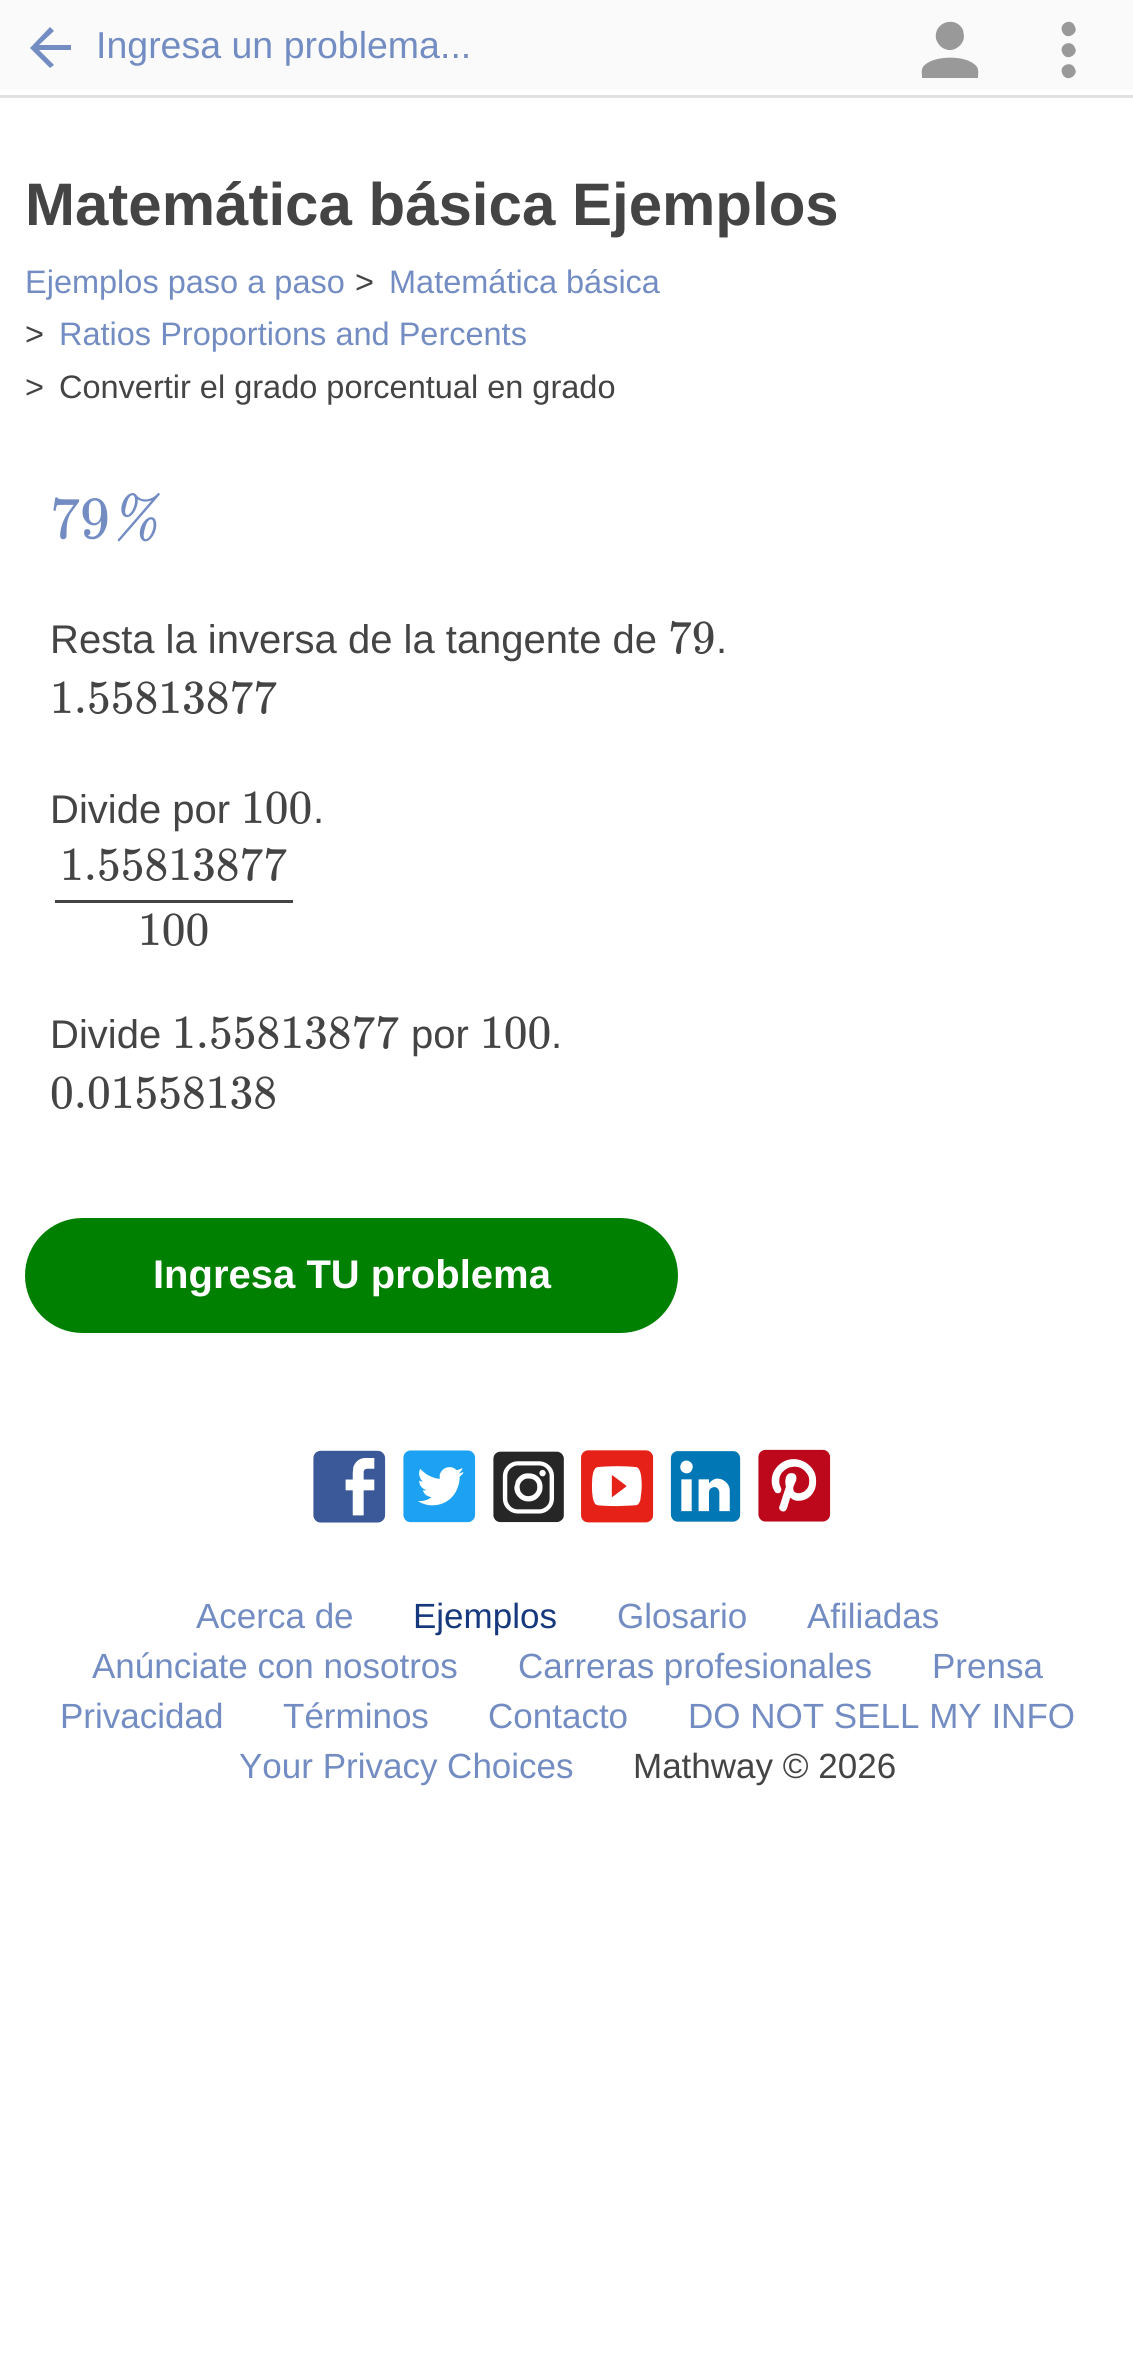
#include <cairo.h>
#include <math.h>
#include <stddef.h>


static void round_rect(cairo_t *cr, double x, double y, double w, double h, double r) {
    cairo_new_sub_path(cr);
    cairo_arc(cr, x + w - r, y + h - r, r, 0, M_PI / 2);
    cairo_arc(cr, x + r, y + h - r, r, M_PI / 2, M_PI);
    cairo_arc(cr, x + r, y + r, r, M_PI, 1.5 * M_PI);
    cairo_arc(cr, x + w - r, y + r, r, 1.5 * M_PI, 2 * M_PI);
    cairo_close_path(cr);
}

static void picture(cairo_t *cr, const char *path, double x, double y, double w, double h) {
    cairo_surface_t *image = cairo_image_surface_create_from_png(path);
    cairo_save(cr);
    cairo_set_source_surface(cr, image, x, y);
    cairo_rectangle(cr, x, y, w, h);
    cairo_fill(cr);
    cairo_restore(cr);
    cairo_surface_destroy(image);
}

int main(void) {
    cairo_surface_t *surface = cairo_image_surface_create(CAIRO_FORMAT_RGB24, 1133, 2357);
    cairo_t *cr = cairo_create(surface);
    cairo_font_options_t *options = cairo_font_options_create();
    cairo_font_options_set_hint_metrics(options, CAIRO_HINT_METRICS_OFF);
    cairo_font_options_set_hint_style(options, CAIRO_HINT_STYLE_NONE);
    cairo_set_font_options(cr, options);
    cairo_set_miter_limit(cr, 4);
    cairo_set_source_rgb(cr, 1, 1, 1);
    cairo_paint(cr);
    cairo_set_source_rgb(cr, 0.882, 0.882, 0.882);
    cairo_rectangle(cr, 0, 95, 1133, 3);
    cairo_fill(cr);
    cairo_set_source_rgb(cr, 0.98, 0.98, 0.98);
    cairo_rectangle(cr, 0, 0, 1133, 90);
    cairo_fill(cr);
    cairo_set_source_rgb(cr, 0.451, 0.553, 0.765);
    cairo_new_path(cr);
    cairo_move_to(cr, 50, 27);
    cairo_line_to(cr, 30, 48);
    cairo_line_to(cr, 50, 68);
    cairo_line_to(cr, 54, 65);
    cairo_line_to(cr, 39, 50);
    cairo_line_to(cr, 71, 50);
    cairo_line_to(cr, 71, 45);
    cairo_line_to(cr, 39, 45);
    cairo_line_to(cr, 54, 31);
    cairo_close_path(cr);
    cairo_fill(cr);
    cairo_select_font_face(cr, "Liberation Sans", CAIRO_FONT_SLANT_NORMAL, CAIRO_FONT_WEIGHT_NORMAL);
    cairo_set_font_size(cr, 37.5);
    cairo_move_to(cr, 96, 58);
    cairo_show_text(cr, "Ingresa un problema...");
    cairo_set_source_rgb(cr, 0.6, 0.6, 0.6);
    cairo_new_path(cr);
    cairo_move_to(cr, 964, 36);
    cairo_line_to(cr, 963, 30);
    cairo_curve_to(cr, 956, 15, 933, 22, 936, 39);
    cairo_curve_to(cr, 937, 41, 937, 42, 938, 43);
    cairo_curve_to(cr, 940, 47, 944, 49, 948, 50);
    cairo_curve_to(cr, 956, 51, 964, 44, 964, 36);
    cairo_close_path(cr);
    cairo_move_to(cr, 978, 78);
    cairo_curve_to(cr, 978, 74, 979, 70, 977, 67);
    cairo_curve_to(cr, 968, 54, 931, 55, 923, 67);
    cairo_curve_to(cr, 921, 70, 922, 74, 922, 78);
    cairo_close_path(cr);
    cairo_fill(cr);
    cairo_new_path(cr);
    cairo_move_to(cr, 1075, 27);
    cairo_curve_to(cr, 1072, 17, 1059, 23, 1062, 31);
    cairo_curve_to(cr, 1066, 42, 1079, 33, 1075, 27);
    cairo_close_path(cr);
    cairo_move_to(cr, 1075, 48);
    cairo_curve_to(cr, 1072, 39, 1059, 44, 1062, 52);
    cairo_curve_to(cr, 1066, 63, 1079, 54, 1075, 48);
    cairo_close_path(cr);
    cairo_move_to(cr, 1075, 69);
    cairo_curve_to(cr, 1072, 60, 1059, 65, 1062, 73);
    cairo_curve_to(cr, 1066, 84, 1079, 75, 1075, 69);
    cairo_close_path(cr);
    cairo_fill(cr);
    cairo_select_font_face(cr, "Liberation Sans", CAIRO_FONT_SLANT_NORMAL, CAIRO_FONT_WEIGHT_BOLD);
    cairo_set_font_size(cr, 60);
    cairo_set_source_rgb(cr, 0.267, 0.267, 0.267);
    cairo_move_to(cr, 25, 225);
    cairo_show_text(cr, "Matemática básica Ejemplos");
    cairo_select_font_face(cr, "Liberation Sans", CAIRO_FONT_SLANT_NORMAL, CAIRO_FONT_WEIGHT_NORMAL);
    cairo_set_font_size(cr, 32.5);
    cairo_set_source_rgb(cr, 0.451, 0.553, 0.765);
    cairo_move_to(cr, 25, 293);
    cairo_show_text(cr, "Ejemplos paso a paso");
    cairo_set_source_rgb(cr, 0.267, 0.267, 0.267);
    cairo_move_to(cr, 355, 293);
    cairo_show_text(cr, ">");
    cairo_set_source_rgb(cr, 0.451, 0.553, 0.765);
    cairo_move_to(cr, 389, 293);
    cairo_show_text(cr, "Matemática básica");
    cairo_set_source_rgb(cr, 0.267, 0.267, 0.267);
    cairo_move_to(cr, 25, 345);
    cairo_show_text(cr, ">");
    cairo_set_source_rgb(cr, 0.451, 0.553, 0.765);
    cairo_move_to(cr, 59, 345);
    cairo_show_text(cr, "Ratios Proportions and Percents");
    cairo_set_source_rgb(cr, 0.267, 0.267, 0.267);
    cairo_move_to(cr, 25, 398);
    cairo_show_text(cr, ">");
    cairo_move_to(cr, 59, 398);
    cairo_show_text(cr, "Convertir el grado porcentual en grado");
    cairo_select_font_face(cr, "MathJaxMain", CAIRO_FONT_SLANT_NORMAL, CAIRO_FONT_WEIGHT_NORMAL);
    cairo_set_font_size(cr, 60);
    cairo_set_source_rgb(cr, 0.451, 0.553, 0.765);
    cairo_move_to(cr, 50, 538);
    cairo_show_text(cr, "79");
    cairo_select_font_face(cr, "MathJaxMain", CAIRO_FONT_SLANT_ITALIC, CAIRO_FONT_WEIGHT_NORMAL);
    cairo_move_to(cr, 109, 538);
    cairo_show_text(cr, "%");
    cairo_select_font_face(cr, "Liberation Sans", CAIRO_FONT_SLANT_NORMAL, CAIRO_FONT_WEIGHT_NORMAL);
    cairo_set_font_size(cr, 40);
    cairo_set_source_rgb(cr, 0.267, 0.267, 0.267);
    cairo_move_to(cr, 50, 653);
    cairo_show_text(cr, "Resta la inversa de la tangente de");
    cairo_select_font_face(cr, "MathJaxMain", CAIRO_FONT_SLANT_NORMAL, CAIRO_FONT_WEIGHT_NORMAL);
    cairo_set_font_size(cr, 47.5);
    cairo_move_to(cr, 668, 653);
    cairo_show_text(cr, "79");
    cairo_select_font_face(cr, "Liberation Sans", CAIRO_FONT_SLANT_NORMAL, CAIRO_FONT_WEIGHT_NORMAL);
    cairo_set_font_size(cr, 40);
    cairo_move_to(cr, 716, 653);
    cairo_show_text(cr, ".");
    cairo_select_font_face(cr, "MathJaxMain", CAIRO_FONT_SLANT_NORMAL, CAIRO_FONT_WEIGHT_NORMAL);
    cairo_set_font_size(cr, 47.5);
    cairo_move_to(cr, 50, 713);
    cairo_show_text(cr, "1.55813877");
    cairo_select_font_face(cr, "Liberation Sans", CAIRO_FONT_SLANT_NORMAL, CAIRO_FONT_WEIGHT_NORMAL);
    cairo_set_font_size(cr, 40);
    cairo_move_to(cr, 50, 823);
    cairo_show_text(cr, "Divide por");
    cairo_select_font_face(cr, "MathJaxMain", CAIRO_FONT_SLANT_NORMAL, CAIRO_FONT_WEIGHT_NORMAL);
    cairo_set_font_size(cr, 47.5);
    cairo_move_to(cr, 241, 823);
    cairo_show_text(cr, "100");
    cairo_select_font_face(cr, "Liberation Sans", CAIRO_FONT_SLANT_NORMAL, CAIRO_FONT_WEIGHT_NORMAL);
    cairo_set_font_size(cr, 40);
    cairo_move_to(cr, 313, 823);
    cairo_show_text(cr, ".");
    cairo_select_font_face(cr, "MathJaxMain", CAIRO_FONT_SLANT_NORMAL, CAIRO_FONT_WEIGHT_NORMAL);
    cairo_set_font_size(cr, 47.5);
    cairo_move_to(cr, 60, 880);
    cairo_show_text(cr, "1.55813877");
    cairo_rectangle(cr, 55, 900, 238, 3);
    cairo_fill(cr);
    cairo_move_to(cr, 138, 945);
    cairo_show_text(cr, "100");
    cairo_select_font_face(cr, "Liberation Sans", CAIRO_FONT_SLANT_NORMAL, CAIRO_FONT_WEIGHT_NORMAL);
    cairo_set_font_size(cr, 40);
    cairo_move_to(cr, 50, 1048);
    cairo_show_text(cr, "Divide");
    cairo_select_font_face(cr, "MathJaxMain", CAIRO_FONT_SLANT_NORMAL, CAIRO_FONT_WEIGHT_NORMAL);
    cairo_set_font_size(cr, 47.5);
    cairo_move_to(cr, 172, 1048);
    cairo_show_text(cr, "1.55813877");
    cairo_select_font_face(cr, "Liberation Sans", CAIRO_FONT_SLANT_NORMAL, CAIRO_FONT_WEIGHT_NORMAL);
    cairo_set_font_size(cr, 40);
    cairo_move_to(cr, 411, 1048);
    cairo_show_text(cr, "por");
    cairo_select_font_face(cr, "MathJaxMain", CAIRO_FONT_SLANT_NORMAL, CAIRO_FONT_WEIGHT_NORMAL);
    cairo_set_font_size(cr, 47.5);
    cairo_move_to(cr, 480, 1048);
    cairo_show_text(cr, "100");
    cairo_select_font_face(cr, "Liberation Sans", CAIRO_FONT_SLANT_NORMAL, CAIRO_FONT_WEIGHT_NORMAL);
    cairo_set_font_size(cr, 40);
    cairo_move_to(cr, 551, 1048);
    cairo_show_text(cr, ".");
    cairo_select_font_face(cr, "MathJaxMain", CAIRO_FONT_SLANT_NORMAL, CAIRO_FONT_WEIGHT_NORMAL);
    cairo_set_font_size(cr, 47.5);
    cairo_move_to(cr, 50, 1108);
    cairo_show_text(cr, "0.01558138");
    cairo_set_source_rgb(cr, 0, 0.502, 0);
    round_rect(cr, 26.5, 1219.5, 650, 112, 56);
    cairo_fill_preserve(cr);
    cairo_set_line_width(cr, 3);
    cairo_stroke(cr);
    cairo_select_font_face(cr, "Liberation Sans", CAIRO_FONT_SLANT_NORMAL, CAIRO_FONT_WEIGHT_BOLD);
    cairo_set_font_size(cr, 40);
    cairo_set_source_rgb(cr, 1, 1, 1);
    cairo_move_to(cr, 153, 1288);
    cairo_show_text(cr, "Ingresa TU problema");
    picture(cr, "img1.png", 313, 1450, 73, 73);
    picture(cr, "img2.png", 403, 1450, 73, 73);
    picture(cr, "img3.png", 493, 1451, 71, 72);
    picture(cr, "img4.png", 581, 1450, 73, 73);
    picture(cr, "img5.png", 670, 1451, 71, 71);
    picture(cr, "img6.png", 758, 1449, 73, 73);
    cairo_select_font_face(cr, "Liberation Sans", CAIRO_FONT_SLANT_NORMAL, CAIRO_FONT_WEIGHT_NORMAL);
    cairo_set_font_size(cr, 35);
    cairo_set_source_rgb(cr, 0.451, 0.553, 0.765);
    cairo_move_to(cr, 196, 1628);
    cairo_show_text(cr, "Acerca de");
    cairo_set_source_rgb(cr, 0.086, 0.22, 0.486);
    cairo_move_to(cr, 413, 1628);
    cairo_show_text(cr, "Ejemplos");
    cairo_set_source_rgb(cr, 0.451, 0.553, 0.765);
    cairo_move_to(cr, 617, 1628);
    cairo_show_text(cr, "Glosario");
    cairo_move_to(cr, 807, 1628);
    cairo_show_text(cr, "Afiliadas");
    cairo_move_to(cr, 92, 1678);
    cairo_show_text(cr, "Anúnciate con nosotros");
    cairo_move_to(cr, 518, 1678);
    cairo_show_text(cr, "Carreras profesionales");
    cairo_move_to(cr, 932, 1678);
    cairo_show_text(cr, "Prensa");
    cairo_move_to(cr, 60, 1728);
    cairo_show_text(cr, "Privacidad");
    cairo_move_to(cr, 283, 1728);
    cairo_show_text(cr, "Términos");
    cairo_move_to(cr, 488, 1728);
    cairo_show_text(cr, "Contacto");
    cairo_move_to(cr, 688, 1728);
    cairo_show_text(cr, "DO NOT SELL MY INFO");
    cairo_move_to(cr, 239, 1778);
    cairo_show_text(cr, "Your Privacy Choices");
    cairo_set_source_rgb(cr, 0.267, 0.267, 0.267);
    cairo_move_to(cr, 633, 1778);
    cairo_show_text(cr, "Mathway © 2026");
    cairo_surface_write_to_png(surface, "page.png");
    cairo_font_options_destroy(options);
    cairo_destroy(cr);
    cairo_surface_destroy(surface);
    return 0;
}
